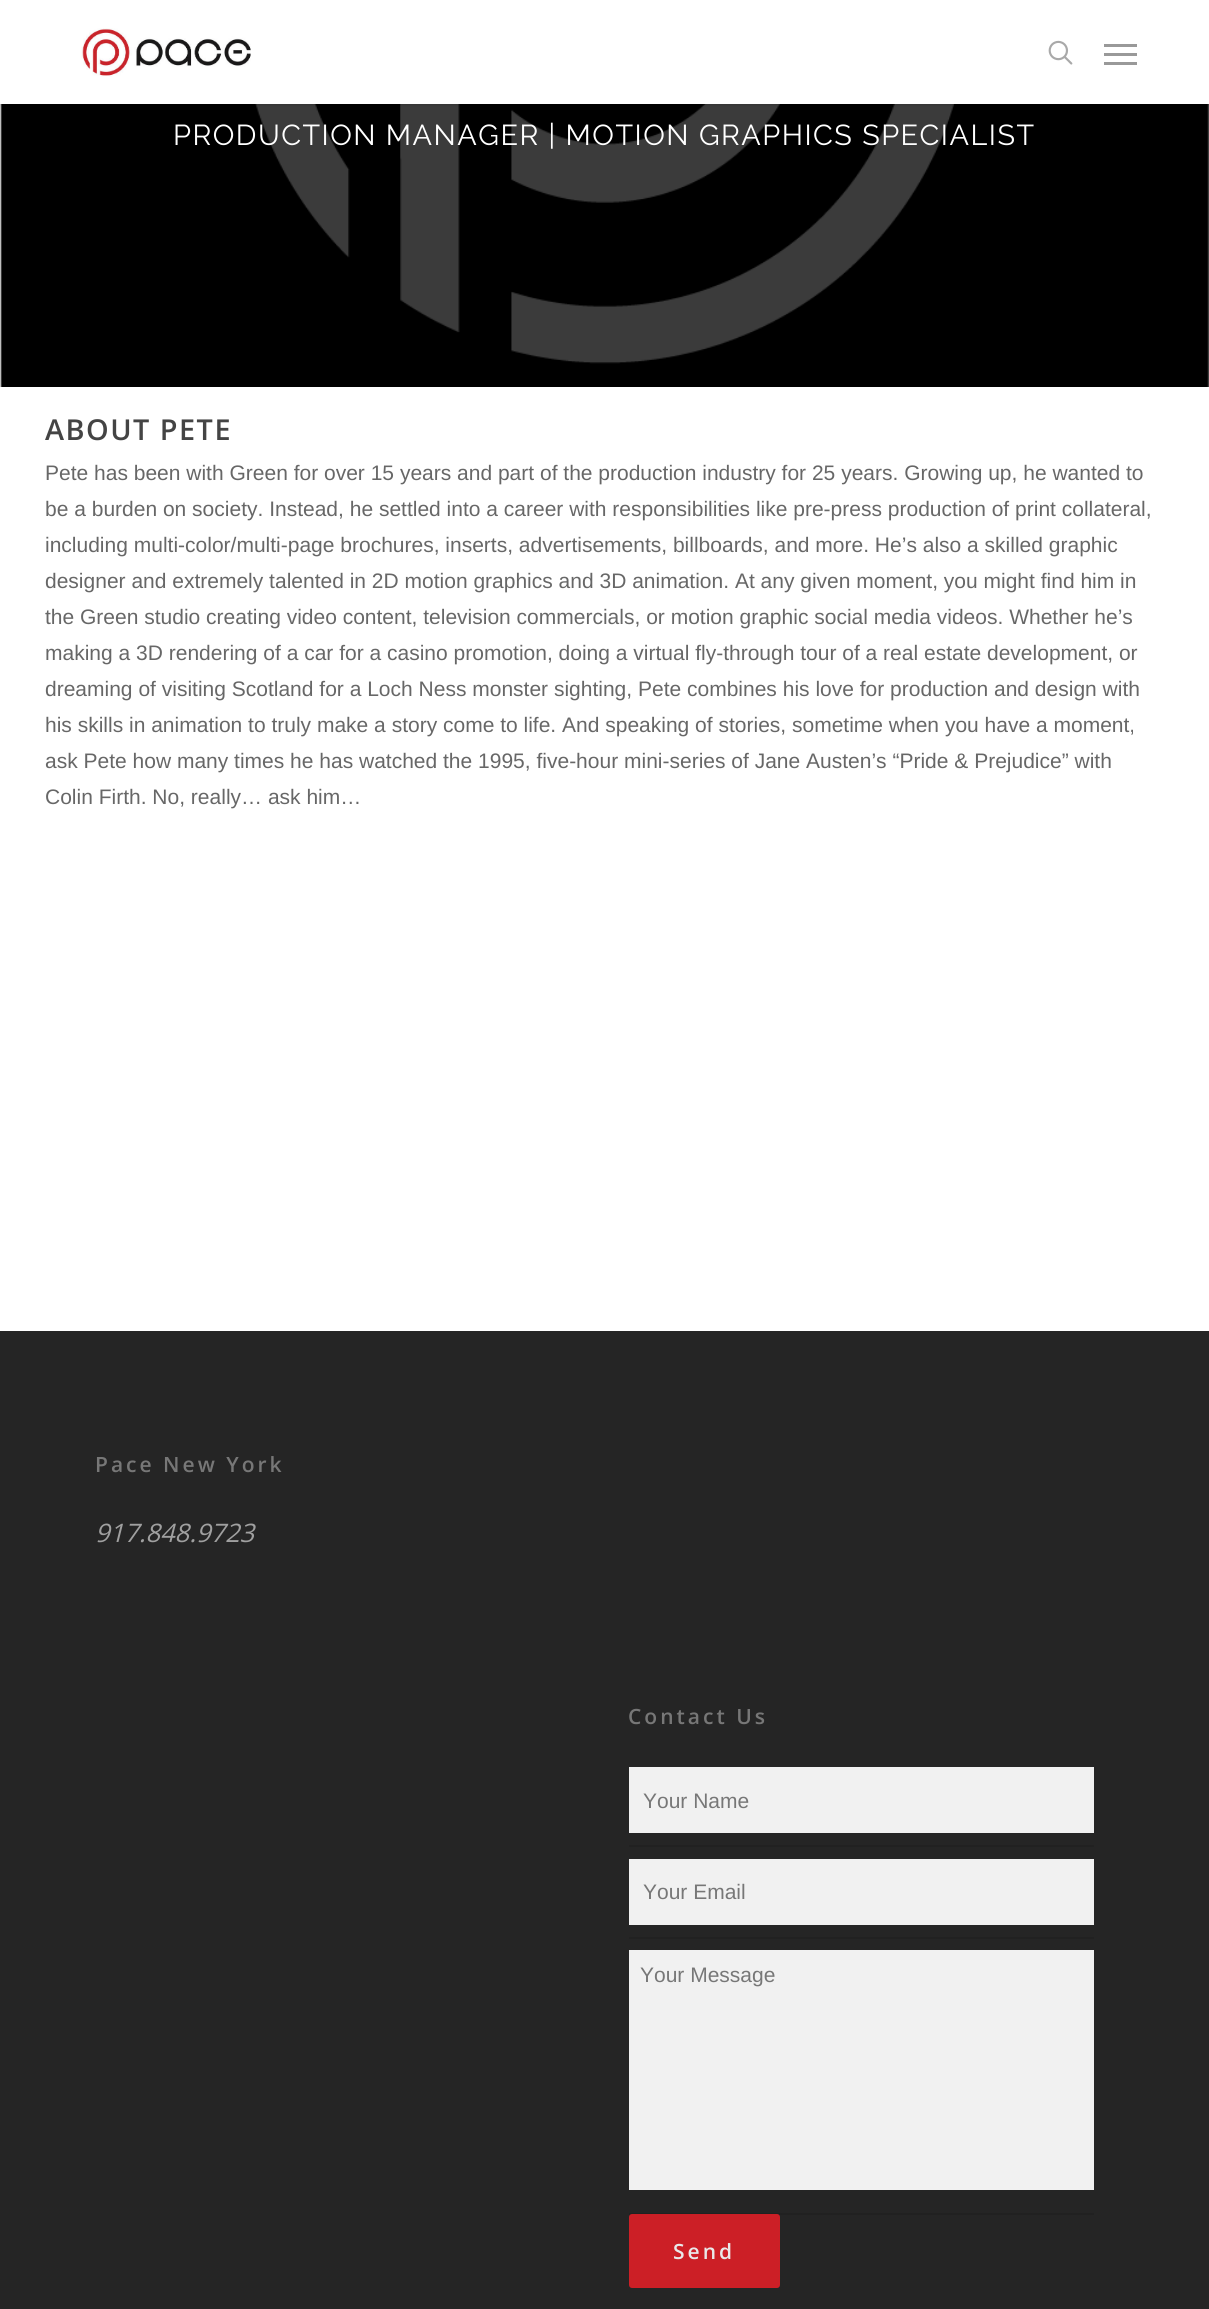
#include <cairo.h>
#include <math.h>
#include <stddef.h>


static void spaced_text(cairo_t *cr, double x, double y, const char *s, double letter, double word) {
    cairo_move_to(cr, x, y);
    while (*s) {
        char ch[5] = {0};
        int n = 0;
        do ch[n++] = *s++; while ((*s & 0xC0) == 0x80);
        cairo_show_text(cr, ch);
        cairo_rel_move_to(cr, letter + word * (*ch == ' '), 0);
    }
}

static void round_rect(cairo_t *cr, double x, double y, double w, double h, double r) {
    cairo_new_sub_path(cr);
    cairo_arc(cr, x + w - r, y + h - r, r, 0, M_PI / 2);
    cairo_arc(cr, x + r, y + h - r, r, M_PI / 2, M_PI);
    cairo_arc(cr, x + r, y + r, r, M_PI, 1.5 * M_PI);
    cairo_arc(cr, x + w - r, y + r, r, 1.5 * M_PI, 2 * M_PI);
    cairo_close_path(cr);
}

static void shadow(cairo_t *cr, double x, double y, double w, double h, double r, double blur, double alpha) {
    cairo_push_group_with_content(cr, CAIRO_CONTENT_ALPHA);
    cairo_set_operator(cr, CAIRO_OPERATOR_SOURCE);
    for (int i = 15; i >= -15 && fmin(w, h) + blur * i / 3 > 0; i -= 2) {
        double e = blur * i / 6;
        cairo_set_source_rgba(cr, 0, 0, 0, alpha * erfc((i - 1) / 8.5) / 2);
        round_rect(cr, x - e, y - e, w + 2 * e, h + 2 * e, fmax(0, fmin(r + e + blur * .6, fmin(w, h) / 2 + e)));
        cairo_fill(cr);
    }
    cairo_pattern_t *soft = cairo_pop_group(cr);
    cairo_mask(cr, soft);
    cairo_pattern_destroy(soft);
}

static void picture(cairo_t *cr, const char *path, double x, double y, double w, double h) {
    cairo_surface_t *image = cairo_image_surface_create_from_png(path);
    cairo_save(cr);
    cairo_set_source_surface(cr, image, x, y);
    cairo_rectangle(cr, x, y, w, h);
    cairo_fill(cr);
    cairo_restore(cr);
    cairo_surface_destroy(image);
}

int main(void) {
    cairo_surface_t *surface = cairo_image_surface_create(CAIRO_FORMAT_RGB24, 1209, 2309);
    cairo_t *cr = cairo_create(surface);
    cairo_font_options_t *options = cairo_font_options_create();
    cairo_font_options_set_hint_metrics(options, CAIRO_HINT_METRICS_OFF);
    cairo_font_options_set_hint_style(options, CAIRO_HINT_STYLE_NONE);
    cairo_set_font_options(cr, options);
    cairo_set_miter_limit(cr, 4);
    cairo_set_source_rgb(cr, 1, 1, 1);
    cairo_paint(cr);
    picture(cr, "img3.png", 0, 104, 1209, 283);
    cairo_set_source_rgb(cr, 0, 0, 0);
    shadow(cr, 0, 0, 1209, 104, 0, 2, 0.22);
    cairo_set_source_rgb(cr, 1, 1, 1);
    cairo_rectangle(cr, 0, 0, 1209, 104);
    cairo_fill(cr);
    picture(cr, "img1.png", 81, 28, 170, 49);
    picture(cr, "img2.png", 1048, 40, 25, 25);
    cairo_set_source_rgb(cr, 0.6, 0.6, 0.6);
    cairo_rectangle(cr, 1104, 44, 33, 3);
    cairo_fill(cr);
    cairo_rectangle(cr, 1104, 62, 33, 3);
    cairo_fill(cr);
    cairo_rectangle(cr, 1104, 53, 33, 3);
    cairo_fill(cr);
    cairo_select_font_face(cr, "Raleway", CAIRO_FONT_SLANT_NORMAL, CAIRO_FONT_WEIGHT_NORMAL);
    cairo_set_font_size(cr, 28.8);
    cairo_set_source_rgb(cr, 1, 1, 1);
    spaced_text(cr, 173, 145, "PRODUCTION MANAGER | MOTION GRAPHICS SPECIALIST", 1.5, 0);
    cairo_select_font_face(cr, "Open Sans SemiBold", CAIRO_FONT_SLANT_NORMAL, CAIRO_FONT_WEIGHT_NORMAL);
    cairo_set_source_rgb(cr, 0.267, 0.267, 0.267);
    spaced_text(cr, 45, 440, "ABOUT PETE", 1.5, 0);
    cairo_select_font_face(cr, "Liberation Sans", CAIRO_FONT_SLANT_NORMAL, CAIRO_FONT_WEIGHT_NORMAL);
    cairo_set_font_size(cr, 21);
    cairo_set_source_rgb(cr, 0.404, 0.404, 0.404);
    cairo_move_to(cr, 45, 480);
    cairo_show_text(cr, "Pete has been with Green for over 15 years and part of the production industry for 25 years. Growing up, he wanted to");
    cairo_move_to(cr, 45, 516);
    cairo_show_text(cr, "be a burden on society. Instead, he settled into a career with responsibilities like pre-press production of print collateral,");
    cairo_move_to(cr, 45, 552);
    cairo_show_text(cr, "including multi-color/multi-page brochures, inserts, advertisements, billboards, and more. He’s also a skilled graphic");
    cairo_move_to(cr, 45, 588);
    cairo_show_text(cr, "designer and extremely talented in 2D motion graphics and 3D animation. At any given moment, you might find him in");
    cairo_move_to(cr, 45, 624);
    cairo_show_text(cr, "the Green studio creating video content, television commercials, or motion graphic social media videos. Whether he’s");
    cairo_move_to(cr, 45, 660);
    cairo_show_text(cr, "making a 3D rendering of a car for a casino promotion, doing a virtual fly-through tour of a real estate development, or");
    cairo_move_to(cr, 45, 696);
    cairo_show_text(cr, "dreaming of visiting Scotland for a Loch Ness monster sighting, Pete combines his love for production and design with");
    cairo_move_to(cr, 45, 732);
    cairo_show_text(cr, "his skills in animation to truly make a story come to life. And speaking of stories, sometime when you have a moment,");
    cairo_move_to(cr, 45, 768);
    cairo_show_text(cr, "ask Pete how many times he has watched the 1995, five-hour mini-series of Jane Austen’s “Pride & Prejudice” with");
    cairo_move_to(cr, 45, 804);
    cairo_show_text(cr, "Colin Firth. No, really… ask him…");
    cairo_set_source_rgb(cr, 0.145, 0.145, 0.145);
    cairo_rectangle(cr, 0, 1331, 1209, 978);
    cairo_fill(cr);
    cairo_select_font_face(cr, "Open Sans SemiBold", CAIRO_FONT_SLANT_NORMAL, CAIRO_FONT_WEIGHT_NORMAL);
    cairo_set_source_rgb(cr, 0.467, 0.467, 0.467);
    spaced_text(cr, 95, 1472, "Pace New York", 3, 0);
    cairo_select_font_face(cr, "Open Sans", CAIRO_FONT_SLANT_ITALIC, CAIRO_FONT_WEIGHT_NORMAL);
    cairo_set_font_size(cr, 25.5);
    cairo_set_source_rgb(cr, 0.627, 0.627, 0.627);
    cairo_move_to(cr, 95, 1542);
    cairo_show_text(cr, "917.848.9723");
    cairo_select_font_face(cr, "Open Sans SemiBold", CAIRO_FONT_SLANT_NORMAL, CAIRO_FONT_WEIGHT_NORMAL);
    cairo_set_font_size(cr, 21);
    cairo_set_source_rgb(cr, 0.467, 0.467, 0.467);
    spaced_text(cr, 628, 1724, "Contact Us", 3, 0);
    cairo_set_source_rgb(cr, 0.129, 0.129, 0.129);
    cairo_rectangle(cr, 629, 1845, 465, 2);
    cairo_fill(cr);
    cairo_set_source_rgb(cr, 0.945, 0.945, 0.945);
    cairo_rectangle(cr, 629, 1767, 465, 66);
    cairo_fill(cr);
    cairo_select_font_face(cr, "Liberation Sans", CAIRO_FONT_SLANT_NORMAL, CAIRO_FONT_WEIGHT_NORMAL);
    cairo_set_source_rgb(cr, 0.467, 0.467, 0.467);
    cairo_move_to(cr, 643, 1808);
    cairo_show_text(cr, "Your Name");
    cairo_set_source_rgb(cr, 0.129, 0.129, 0.129);
    cairo_rectangle(cr, 629, 1937, 465, 2);
    cairo_fill(cr);
    cairo_set_source_rgb(cr, 0.945, 0.945, 0.945);
    cairo_rectangle(cr, 629, 1859, 465, 66);
    cairo_fill(cr);
    cairo_set_source_rgb(cr, 0.467, 0.467, 0.467);
    cairo_move_to(cr, 643, 1899);
    cairo_show_text(cr, "Your Email");
    cairo_set_source_rgb(cr, 0.129, 0.129, 0.129);
    cairo_rectangle(cr, 629, 2213, 465, 2);
    cairo_fill(cr);
    cairo_set_source_rgb(cr, 0.945, 0.945, 0.945);
    cairo_rectangle(cr, 629, 1950, 465, 240);
    cairo_fill(cr);
    cairo_set_source_rgb(cr, 0.467, 0.467, 0.467);
    cairo_move_to(cr, 640, 1982);
    cairo_show_text(cr, "Your Message");
    cairo_set_source_rgba(cr, 0.871, 0.118, 0.149, 0.9);
    round_rect(cr, 629, 2214, 151, 74, 3);
    cairo_fill(cr);
    cairo_select_font_face(cr, "Open Sans SemiBold", CAIRO_FONT_SLANT_NORMAL, CAIRO_FONT_WEIGHT_NORMAL);
    cairo_set_source_rgb(cr, 0.914, 0.914, 0.914);
    spaced_text(cr, 673, 2259, "Send", 3, 0);
    cairo_surface_write_to_png(surface, "page.png");
    cairo_font_options_destroy(options);
    cairo_destroy(cr);
    cairo_surface_destroy(surface);
    return 0;
}
